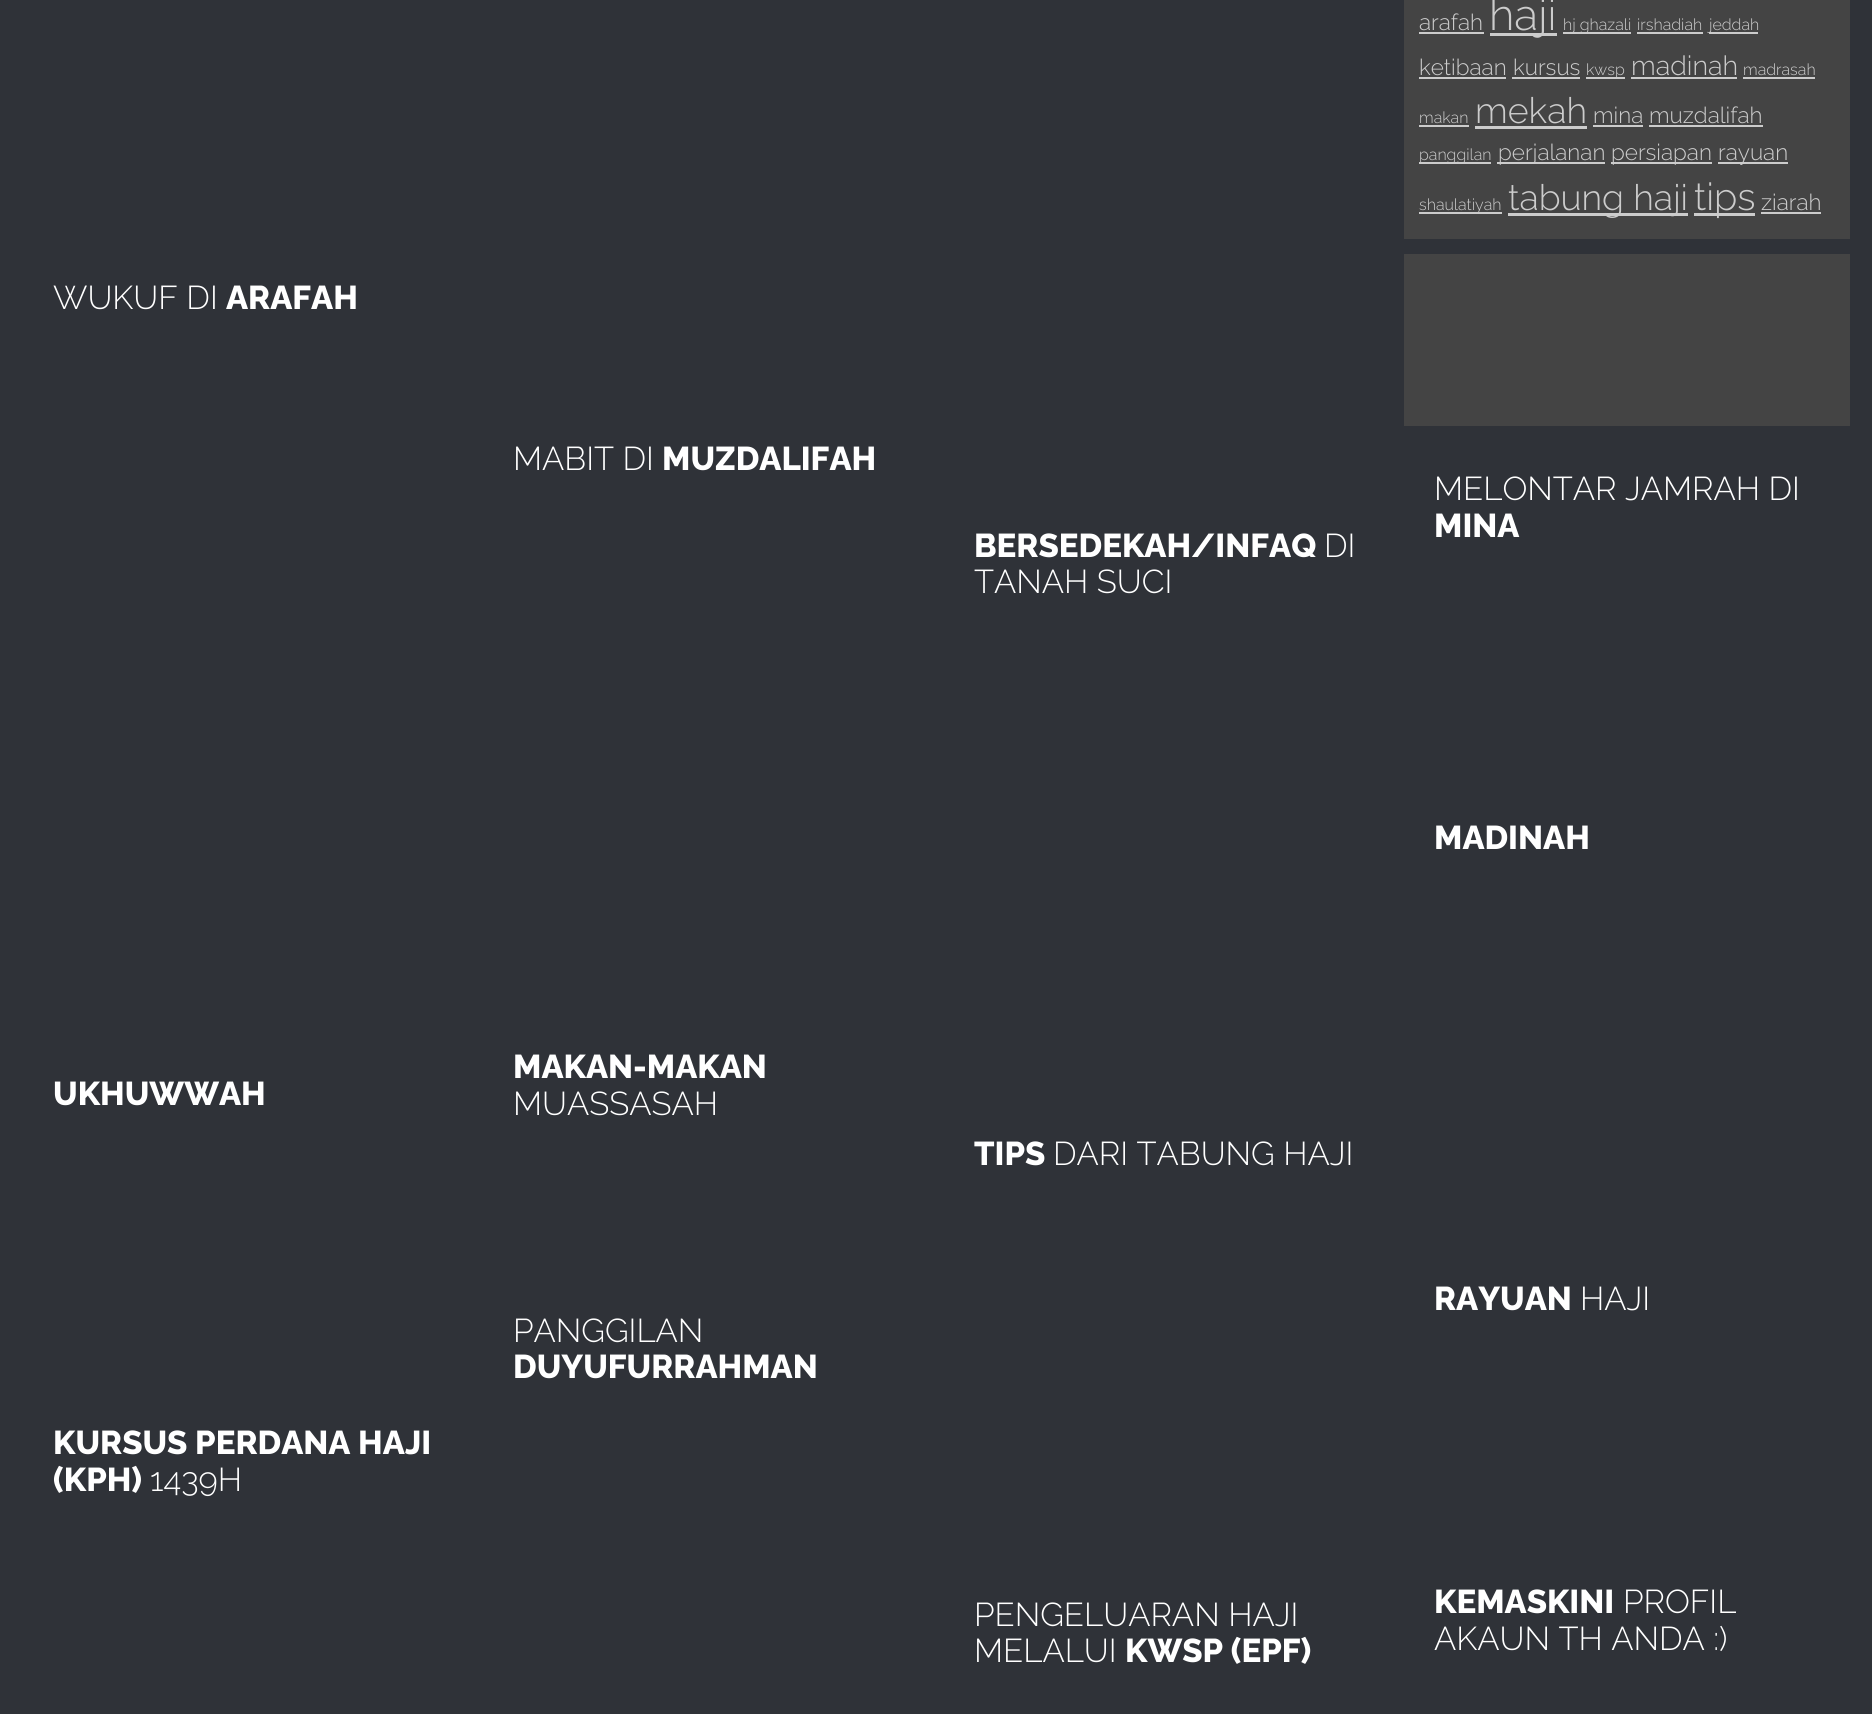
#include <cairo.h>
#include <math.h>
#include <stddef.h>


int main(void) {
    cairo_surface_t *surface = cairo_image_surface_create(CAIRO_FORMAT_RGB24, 1872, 1714);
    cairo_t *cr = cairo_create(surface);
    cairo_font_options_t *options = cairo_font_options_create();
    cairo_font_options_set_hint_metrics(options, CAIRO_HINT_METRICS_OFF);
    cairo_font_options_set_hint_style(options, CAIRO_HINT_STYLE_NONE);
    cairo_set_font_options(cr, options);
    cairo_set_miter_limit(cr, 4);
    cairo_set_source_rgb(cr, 0.184, 0.196, 0.22);
    cairo_paint(cr);
    cairo_set_source_rgb(cr, 0.267, 0.267, 0.267);
    cairo_rectangle(cr, 1404, 0, 446, 239);
    cairo_fill(cr);
    cairo_select_font_face(cr, "Raleway Light", CAIRO_FONT_SLANT_NORMAL, CAIRO_FONT_WEIGHT_NORMAL);
    cairo_set_font_size(cr, 22.5);
    cairo_set_source_rgb(cr, 0.8, 0.8, 0.8);
    cairo_move_to(cr, 1419, 30);
    cairo_show_text(cr, "arafah");
    cairo_rectangle(cr, 1419, 32, 65, 2);
    cairo_fill(cr);
    cairo_rectangle(cr, 1490, 33, 67, 3);
    cairo_fill(cr);
    cairo_set_font_size(cr, 44);
    cairo_move_to(cr, 1489, 30);
    cairo_show_text(cr, "haji");
    cairo_rectangle(cr, 1563, 32, 68, 2);
    cairo_fill(cr);
    cairo_set_font_size(cr, 16);
    cairo_move_to(cr, 1563, 30);
    cairo_show_text(cr, "hj ghazali");
    cairo_move_to(cr, 1637, 30);
    cairo_show_text(cr, "irshadiah");
    cairo_rectangle(cr, 1637, 32, 66, 2);
    cairo_fill(cr);
    cairo_rectangle(cr, 1709, 32, 49, 2);
    cairo_fill(cr);
    cairo_move_to(cr, 1709, 30);
    cairo_show_text(cr, "jeddah");
    cairo_set_font_size(cr, 22.5);
    cairo_move_to(cr, 1419, 75);
    cairo_show_text(cr, "ketibaan");
    cairo_rectangle(cr, 1419, 77, 87, 2);
    cairo_fill(cr);
    cairo_move_to(cr, 1513, 75);
    cairo_show_text(cr, "kursus");
    cairo_rectangle(cr, 1512, 77, 68, 2);
    cairo_fill(cr);
    cairo_rectangle(cr, 1586, 77, 39, 2);
    cairo_fill(cr);
    cairo_set_font_size(cr, 16);
    cairo_move_to(cr, 1586, 75);
    cairo_show_text(cr, "kwsp");
    cairo_set_font_size(cr, 27);
    cairo_move_to(cr, 1631, 75);
    cairo_show_text(cr, "madinah");
    cairo_rectangle(cr, 1631, 77, 106, 2);
    cairo_fill(cr);
    cairo_set_font_size(cr, 16);
    cairo_move_to(cr, 1743, 75);
    cairo_show_text(cr, "madrasah");
    cairo_rectangle(cr, 1743, 77, 72, 2);
    cairo_fill(cr);
    cairo_move_to(cr, 1419, 123);
    cairo_show_text(cr, "makan");
    cairo_rectangle(cr, 1419, 125, 50, 2);
    cairo_fill(cr);
    cairo_set_font_size(cr, 35.75);
    cairo_move_to(cr, 1475, 123);
    cairo_show_text(cr, "mekah");
    cairo_rectangle(cr, 1475, 126, 112, 3);
    cairo_fill(cr);
    cairo_set_font_size(cr, 22.5);
    cairo_move_to(cr, 1593, 123);
    cairo_show_text(cr, "mina");
    cairo_rectangle(cr, 1593, 125, 50, 2);
    cairo_fill(cr);
    cairo_move_to(cr, 1649, 123);
    cairo_show_text(cr, "muzdalifah");
    cairo_rectangle(cr, 1649, 125, 114, 2);
    cairo_fill(cr);
    cairo_rectangle(cr, 1419, 162, 72, 2);
    cairo_fill(cr);
    cairo_set_font_size(cr, 16);
    cairo_move_to(cr, 1419, 160);
    cairo_show_text(cr, "panggilan");
    cairo_rectangle(cr, 1497, 162, 108, 2);
    cairo_fill(cr);
    cairo_set_font_size(cr, 22.5);
    cairo_move_to(cr, 1498, 160);
    cairo_show_text(cr, "perjalanan");
    cairo_rectangle(cr, 1611, 162, 101, 2);
    cairo_fill(cr);
    cairo_move_to(cr, 1611, 160);
    cairo_show_text(cr, "persiapan");
    cairo_rectangle(cr, 1718, 162, 70, 2);
    cairo_fill(cr);
    cairo_move_to(cr, 1718, 160);
    cairo_show_text(cr, "rayuan");
    cairo_rectangle(cr, 1419, 212, 83, 2);
    cairo_fill(cr);
    cairo_set_font_size(cr, 16);
    cairo_move_to(cr, 1419, 210);
    cairo_show_text(cr, "shaulatiyah");
    cairo_rectangle(cr, 1508, 213, 180, 3);
    cairo_fill(cr);
    cairo_set_font_size(cr, 35.75);
    cairo_move_to(cr, 1508, 210);
    cairo_show_text(cr, "tabung haji");
    cairo_rectangle(cr, 1694, 213, 61, 3);
    cairo_fill(cr);
    cairo_set_font_size(cr, 38);
    cairo_move_to(cr, 1694, 210);
    cairo_show_text(cr, "tips");
    cairo_set_font_size(cr, 22.5);
    cairo_move_to(cr, 1761, 210);
    cairo_show_text(cr, "ziarah");
    cairo_rectangle(cr, 1761, 212, 60, 2);
    cairo_fill(cr);
    cairo_set_source_rgb(cr, 0.267, 0.267, 0.267);
    cairo_rectangle(cr, 1404, 254, 446, 172);
    cairo_fill(cr);
    cairo_set_font_size(cr, 33);
    cairo_set_source_rgb(cr, 1, 1, 1);
    cairo_move_to(cr, 53, 309);
    cairo_show_text(cr, "WUKUF DI");
    cairo_select_font_face(cr, "Raleway ExtraBold", CAIRO_FONT_SLANT_NORMAL, CAIRO_FONT_WEIGHT_NORMAL);
    cairo_move_to(cr, 226, 309);
    cairo_show_text(cr, "ARAFAH");
    cairo_select_font_face(cr, "Raleway Light", CAIRO_FONT_SLANT_NORMAL, CAIRO_FONT_WEIGHT_NORMAL);
    cairo_move_to(cr, 513, 470);
    cairo_show_text(cr, "MABIT DI");
    cairo_select_font_face(cr, "Raleway ExtraBold", CAIRO_FONT_SLANT_NORMAL, CAIRO_FONT_WEIGHT_NORMAL);
    cairo_move_to(cr, 662, 470);
    cairo_show_text(cr, "MUZDALIFAH");
    cairo_select_font_face(cr, "Raleway Light", CAIRO_FONT_SLANT_NORMAL, CAIRO_FONT_WEIGHT_NORMAL);
    cairo_move_to(cr, 1434, 500);
    cairo_show_text(cr, "MELONTAR JAMRAH DI");
    cairo_select_font_face(cr, "Raleway ExtraBold", CAIRO_FONT_SLANT_NORMAL, CAIRO_FONT_WEIGHT_NORMAL);
    cairo_move_to(cr, 1434, 537);
    cairo_show_text(cr, "MINA");
    cairo_move_to(cr, 974, 557);
    cairo_show_text(cr, "BERSEDEKAH/INFAQ");
    cairo_select_font_face(cr, "Raleway Light", CAIRO_FONT_SLANT_NORMAL, CAIRO_FONT_WEIGHT_NORMAL);
    cairo_move_to(cr, 1324, 557);
    cairo_show_text(cr, "DI");
    cairo_move_to(cr, 974, 593);
    cairo_show_text(cr, "TANAH SUCI");
    cairo_select_font_face(cr, "Raleway ExtraBold", CAIRO_FONT_SLANT_NORMAL, CAIRO_FONT_WEIGHT_NORMAL);
    cairo_move_to(cr, 1434, 849);
    cairo_show_text(cr, "MADINAH");
    cairo_move_to(cr, 53, 1105);
    cairo_show_text(cr, "UKHUWWAH");
    cairo_move_to(cr, 513, 1078);
    cairo_show_text(cr, "MAKAN-MAKAN");
    cairo_select_font_face(cr, "Raleway Light", CAIRO_FONT_SLANT_NORMAL, CAIRO_FONT_WEIGHT_NORMAL);
    cairo_move_to(cr, 513, 1115);
    cairo_show_text(cr, "MUASSASAH");
    cairo_select_font_face(cr, "Raleway ExtraBold", CAIRO_FONT_SLANT_NORMAL, CAIRO_FONT_WEIGHT_NORMAL);
    cairo_move_to(cr, 974, 1165);
    cairo_show_text(cr, "TIPS");
    cairo_select_font_face(cr, "Raleway Light", CAIRO_FONT_SLANT_NORMAL, CAIRO_FONT_WEIGHT_NORMAL);
    cairo_move_to(cr, 1053, 1165);
    cairo_show_text(cr, "DARI TABUNG HAJI");
    cairo_select_font_face(cr, "Raleway ExtraBold", CAIRO_FONT_SLANT_NORMAL, CAIRO_FONT_WEIGHT_NORMAL);
    cairo_move_to(cr, 1434, 1310);
    cairo_show_text(cr, "RAYUAN");
    cairo_select_font_face(cr, "Raleway Light", CAIRO_FONT_SLANT_NORMAL, CAIRO_FONT_WEIGHT_NORMAL);
    cairo_move_to(cr, 1580, 1310);
    cairo_show_text(cr, "HAJI");
    cairo_move_to(cr, 513, 1342);
    cairo_show_text(cr, "PANGGILAN");
    cairo_select_font_face(cr, "Raleway ExtraBold", CAIRO_FONT_SLANT_NORMAL, CAIRO_FONT_WEIGHT_NORMAL);
    cairo_move_to(cr, 513, 1378);
    cairo_show_text(cr, "DUYUFURRAHMAN");
    cairo_move_to(cr, 53, 1454);
    cairo_show_text(cr, "KURSUS PERDANA HAJI");
    cairo_move_to(cr, 53, 1491);
    cairo_show_text(cr, "(KPH)");
    cairo_select_font_face(cr, "Raleway Light", CAIRO_FONT_SLANT_NORMAL, CAIRO_FONT_WEIGHT_NORMAL);
    cairo_move_to(cr, 150, 1491);
    cairo_show_text(cr, "1439H");
    cairo_move_to(cr, 974, 1626);
    cairo_show_text(cr, "PENGELUARAN HAJI");
    cairo_move_to(cr, 974, 1662);
    cairo_show_text(cr, "MELALUI");
    cairo_select_font_face(cr, "Raleway ExtraBold", CAIRO_FONT_SLANT_NORMAL, CAIRO_FONT_WEIGHT_NORMAL);
    cairo_move_to(cr, 1125, 1662);
    cairo_show_text(cr, "KWSP (EPF)");
    cairo_move_to(cr, 1434, 1613);
    cairo_show_text(cr, "KEMASKINI");
    cairo_select_font_face(cr, "Raleway Light", CAIRO_FONT_SLANT_NORMAL, CAIRO_FONT_WEIGHT_NORMAL);
    cairo_move_to(cr, 1623, 1613);
    cairo_show_text(cr, "PROFIL");
    cairo_move_to(cr, 1434, 1650);
    cairo_show_text(cr, "AKAUN TH ANDA :)");
    cairo_surface_write_to_png(surface, "page.png");
    cairo_font_options_destroy(options);
    cairo_destroy(cr);
    cairo_surface_destroy(surface);
    return 0;
}
